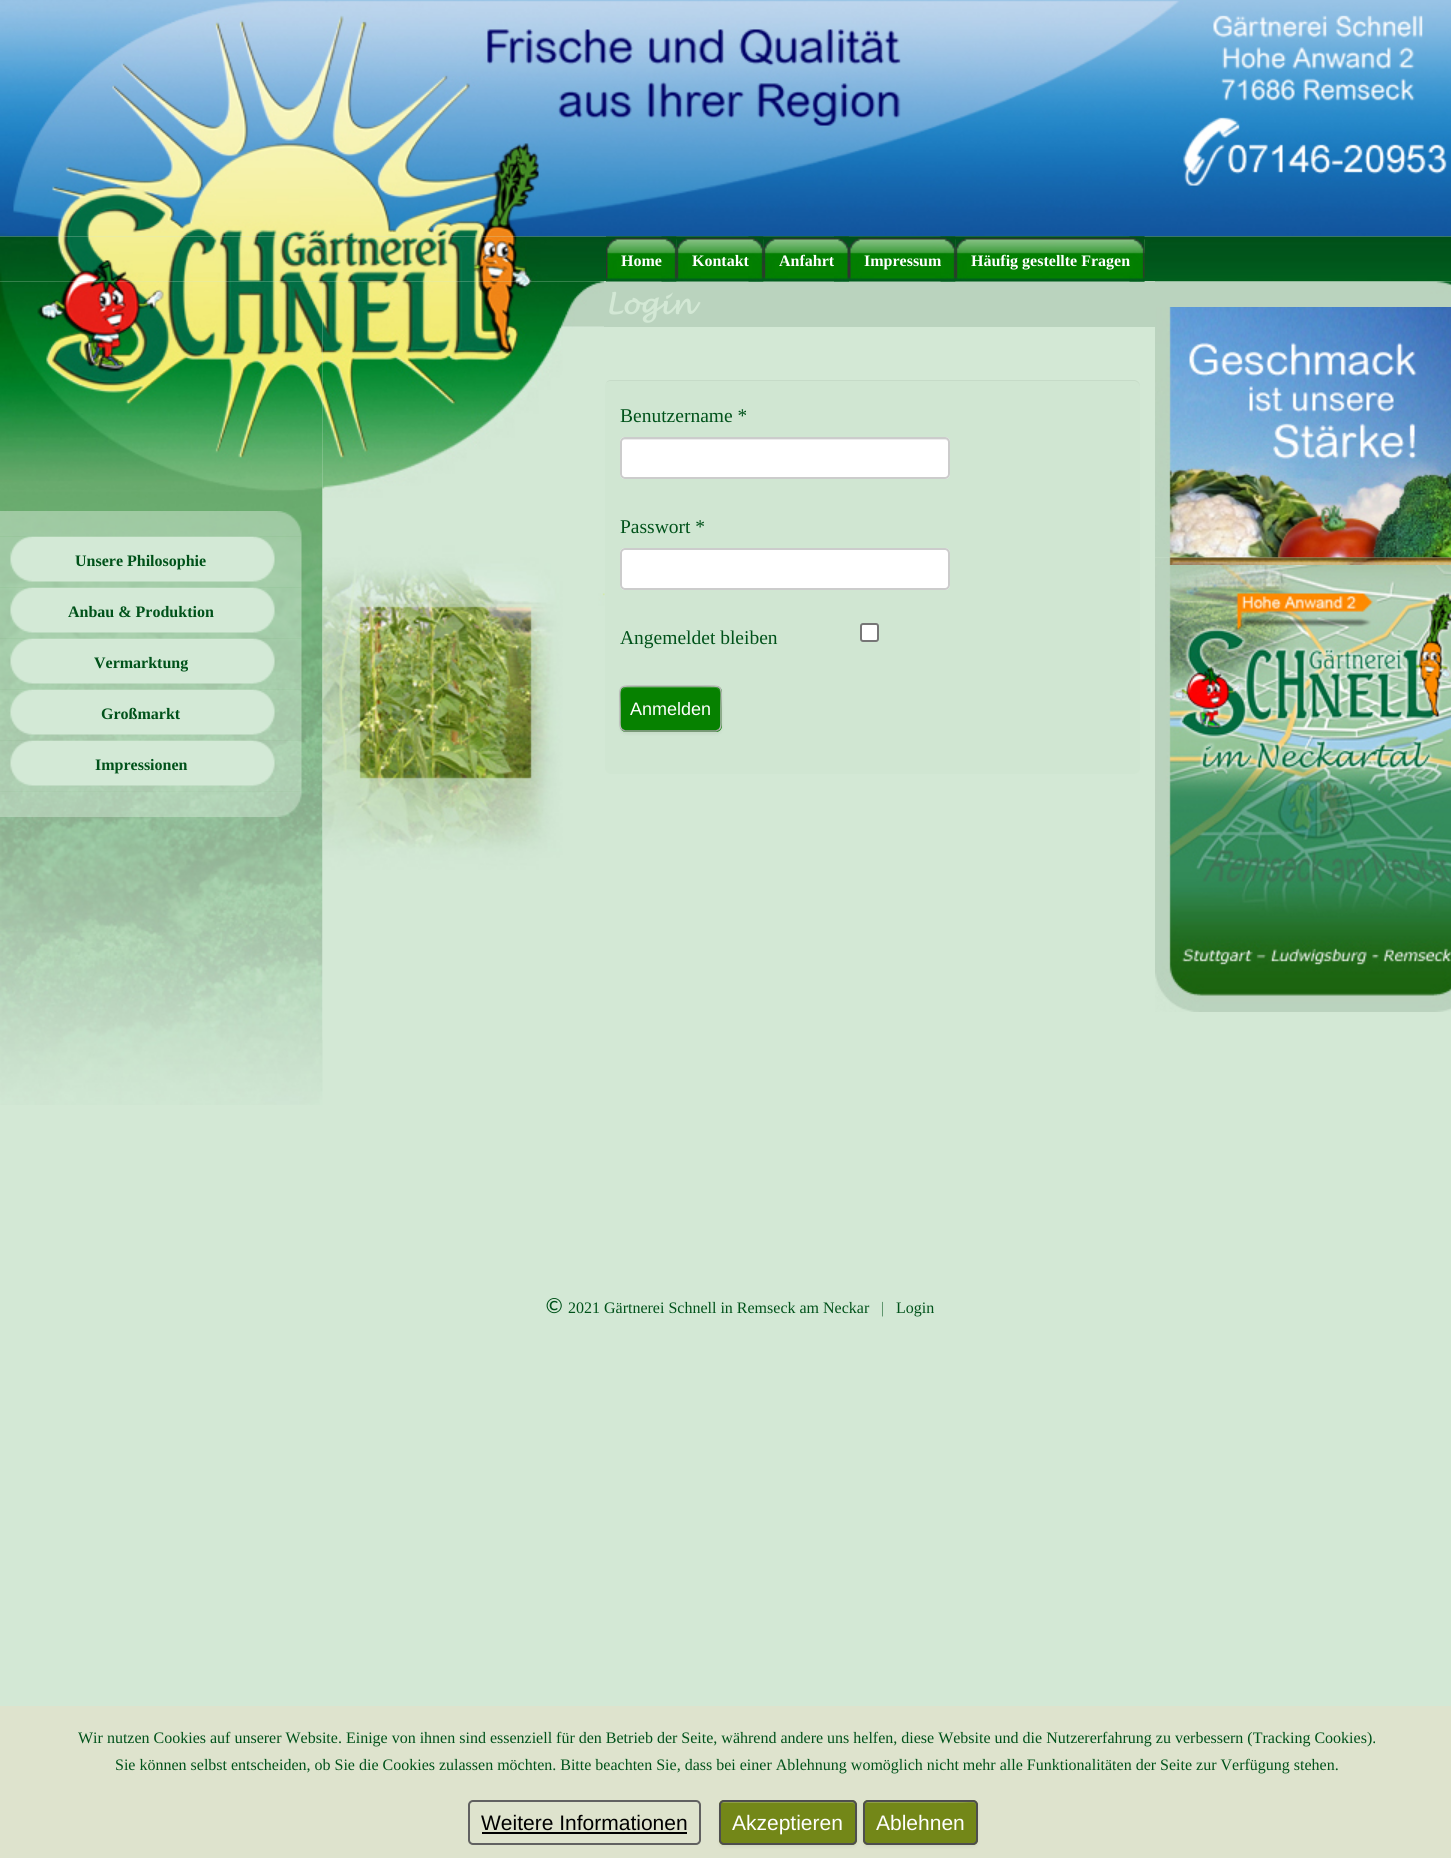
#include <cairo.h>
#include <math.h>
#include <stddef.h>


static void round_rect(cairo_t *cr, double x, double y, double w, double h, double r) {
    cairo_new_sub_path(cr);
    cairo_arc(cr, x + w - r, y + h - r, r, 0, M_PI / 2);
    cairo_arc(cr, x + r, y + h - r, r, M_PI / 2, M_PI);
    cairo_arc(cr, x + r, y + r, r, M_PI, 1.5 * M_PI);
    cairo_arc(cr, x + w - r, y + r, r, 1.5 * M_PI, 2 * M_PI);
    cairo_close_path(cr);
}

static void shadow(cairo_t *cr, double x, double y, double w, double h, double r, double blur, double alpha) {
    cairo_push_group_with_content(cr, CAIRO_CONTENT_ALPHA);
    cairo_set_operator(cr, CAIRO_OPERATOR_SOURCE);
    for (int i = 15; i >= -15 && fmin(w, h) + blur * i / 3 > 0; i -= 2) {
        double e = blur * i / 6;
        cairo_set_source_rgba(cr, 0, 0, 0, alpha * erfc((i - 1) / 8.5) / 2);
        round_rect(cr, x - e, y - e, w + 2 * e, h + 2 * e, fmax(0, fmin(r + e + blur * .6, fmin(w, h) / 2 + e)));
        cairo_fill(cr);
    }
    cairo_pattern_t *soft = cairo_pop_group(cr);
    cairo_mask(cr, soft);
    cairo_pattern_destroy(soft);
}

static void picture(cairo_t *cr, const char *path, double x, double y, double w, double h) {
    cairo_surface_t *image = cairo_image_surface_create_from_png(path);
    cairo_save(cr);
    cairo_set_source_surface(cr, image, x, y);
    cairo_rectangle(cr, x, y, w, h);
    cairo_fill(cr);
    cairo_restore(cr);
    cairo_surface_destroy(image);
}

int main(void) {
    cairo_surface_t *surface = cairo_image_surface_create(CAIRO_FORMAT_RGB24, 1451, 1858);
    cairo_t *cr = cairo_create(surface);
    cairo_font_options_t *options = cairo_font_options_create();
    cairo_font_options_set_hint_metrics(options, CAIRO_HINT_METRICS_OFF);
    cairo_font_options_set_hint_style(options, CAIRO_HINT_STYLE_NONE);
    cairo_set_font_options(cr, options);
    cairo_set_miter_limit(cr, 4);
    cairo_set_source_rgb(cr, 0.827, 0.91, 0.835);
    cairo_paint(cr);
    picture(cr, "img1.png", 0, 0, 1451, 237);
    picture(cr, "img2.png", 0, 236, 1451, 46);
    picture(cr, "img13.png", 0, 281, 323, 824);
    picture(cr, "img21.png", 322, 281, 283, 759);
    cairo_set_source_rgb(cr, 0.729, 0.827, 0.745);
    cairo_rectangle(cr, 604, 281, 551, 46);
    cairo_fill(cr);
    picture(cr, "img3.png", 606, 236, 71, 46);
    picture(cr, "img4.png", 661, 236, 16, 46);
    cairo_select_font_face(cr, "Liberation Serif", CAIRO_FONT_SLANT_NORMAL, CAIRO_FONT_WEIGHT_BOLD);
    cairo_set_font_size(cr, 16);
    cairo_set_source_rgb(cr, 1, 1, 1);
    cairo_move_to(cr, 621, 266);
    cairo_show_text(cr, "Home");
    picture(cr, "img5.png", 676, 236, 88, 46);
    picture(cr, "img6.png", 748, 236, 16, 46);
    cairo_move_to(cr, 692, 266);
    cairo_show_text(cr, "Kontakt");
    picture(cr, "img7.png", 763, 236, 86, 46);
    picture(cr, "img8.png", 834, 236, 15, 46);
    cairo_move_to(cr, 779, 266);
    cairo_show_text(cr, "Anfahrt");
    picture(cr, "img9.png", 849, 236, 107, 46);
    picture(cr, "img10.png", 940, 236, 16, 46);
    cairo_move_to(cr, 864, 266);
    cairo_show_text(cr, "Impressum");
    picture(cr, "img11.png", 955, 236, 190, 46);
    picture(cr, "img12.png", 1129, 236, 16, 46);
    cairo_move_to(cr, 971, 266);
    cairo_show_text(cr, "Häufig gestellte Fragen");
    picture(cr, "img14.png", 0, 511, 302, 26);
    picture(cr, "img15.png", 0, 536, 302, 52);
    cairo_set_source_rgb(cr, 0, 0.322, 0.102);
    cairo_move_to(cr, 75, 566);
    cairo_show_text(cr, "Unsere Philosophie");
    picture(cr, "img16.png", 0, 587, 302, 52);
    cairo_move_to(cr, 68, 617);
    cairo_show_text(cr, "Anbau & Produktion");
    picture(cr, "img17.png", 0, 638, 302, 52);
    cairo_move_to(cr, 94, 668);
    cairo_show_text(cr, "Vermarktung");
    picture(cr, "img18.png", 0, 689, 302, 52);
    cairo_move_to(cr, 101, 719);
    cairo_show_text(cr, "Großmarkt");
    picture(cr, "img20.png", 0, 791, 302, 26);
    picture(cr, "img19.png", 0, 740, 302, 52);
    cairo_move_to(cr, 95, 770);
    cairo_show_text(cr, "Impressionen");
    cairo_select_font_face(cr, "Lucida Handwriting", CAIRO_FONT_SLANT_ITALIC, CAIRO_FONT_WEIGHT_BOLD);
    cairo_set_font_size(cr, 27);
    cairo_set_source_rgb(cr, 0.827, 0.91, 0.835);
    cairo_move_to(cr, 605, 314);
    cairo_show_text(cr, "Login");
    cairo_set_source_rgb(cr, 0.816, 0.902, 0.824);
    round_rect(cr, 605, 380, 535, 394, 6);
    cairo_fill(cr);
    cairo_set_source_rgb(cr, 0.776, 0.859, 0.784);
    cairo_new_path(cr);
    cairo_move_to(cr, 610, 381);
    cairo_line_to(cr, 1134, 381);
    cairo_curve_to(cr, 1137, 381, 1140, 384, 1140, 387);
    cairo_line_to(cr, 1140, 386);
    cairo_curve_to(cr, 1140, 383, 1137, 380, 1134, 380);
    cairo_line_to(cr, 611, 380);
    cairo_curve_to(cr, 609, 380, 607, 381, 606, 383);
    cairo_curve_to(cr, 607, 382, 609, 381, 610, 381);
    cairo_close_path(cr);
    cairo_fill(cr);
    cairo_select_font_face(cr, "Liberation Serif", CAIRO_FONT_SLANT_NORMAL, CAIRO_FONT_WEIGHT_NORMAL);
    cairo_set_font_size(cr, 19.5);
    cairo_set_source_rgb(cr, 0, 0.322, 0.102);
    cairo_move_to(cr, 620, 422);
    cairo_show_text(cr, "Benutzername *");
    cairo_set_source_rgb(cr, 1, 1, 1);
    round_rect(cr, 620, 437, 330, 42, 5);
    cairo_fill(cr);
    cairo_set_source_rgb(cr, 0.925, 0.925, 0.925);
    cairo_new_path(cr);
    cairo_move_to(cr, 624, 440);
    cairo_line_to(cr, 945, 440);
    cairo_curve_to(cr, 947, 440, 948, 441, 948, 442);
    cairo_curve_to(cr, 948, 440, 947, 438, 945, 438);
    cairo_line_to(cr, 624, 438);
    cairo_curve_to(cr, 622, 438, 621, 440, 621, 442);
    cairo_curve_to(cr, 621, 441, 622, 440, 624, 440);
    cairo_close_path(cr);
    cairo_fill(cr);
    round_rect(cr, 621, 438, 328, 40, 4);
    cairo_set_source_rgb(cr, 0.8, 0.8, 0.8);
    cairo_stroke(cr);
    cairo_set_source_rgb(cr, 0, 0.322, 0.102);
    cairo_move_to(cr, 620, 533);
    cairo_show_text(cr, "Passwort *");
    cairo_set_source_rgb(cr, 1, 1, 1);
    round_rect(cr, 620, 548, 330, 42, 5);
    cairo_fill(cr);
    cairo_set_source_rgb(cr, 0.925, 0.925, 0.925);
    cairo_new_path(cr);
    cairo_move_to(cr, 624, 550);
    cairo_line_to(cr, 945, 550);
    cairo_curve_to(cr, 947, 550, 948, 552, 948, 554);
    cairo_line_to(cr, 948, 552);
    cairo_curve_to(cr, 948, 550, 947, 549, 945, 549);
    cairo_line_to(cr, 624, 549);
    cairo_curve_to(cr, 622, 549, 621, 550, 621, 552);
    cairo_line_to(cr, 621, 554);
    cairo_curve_to(cr, 621, 552, 622, 550, 624, 550);
    cairo_close_path(cr);
    cairo_fill(cr);
    round_rect(cr, 621, 549, 328, 40, 4);
    cairo_set_source_rgb(cr, 0.8, 0.8, 0.8);
    cairo_stroke(cr);
    cairo_set_source_rgb(cr, 0, 0.322, 0.102);
    cairo_move_to(cr, 620, 644);
    cairo_show_text(cr, "Angemeldet bleiben");
    cairo_set_source_rgb(cr, 1, 1, 1);
    round_rect(cr, 861, 624, 17, 17, 2);
    cairo_fill_preserve(cr);
    cairo_set_source_rgb(cr, 0.463, 0.463, 0.463);
    cairo_stroke(cr);
    cairo_set_source_rgb(cr, 0, 0, 0);
    shadow(cr, 620, 687, 102, 47, 6, 1.5, 0.05);
    cairo_set_source_rgb(cr, 0.027, 0.506, 0);
    round_rect(cr, 620, 686, 102, 46, 6);
    cairo_fill(cr);
    cairo_set_source_rgb(cr, 0.224, 0.604, 0.2);
    cairo_new_path(cr);
    cairo_move_to(cr, 626, 688);
    cairo_line_to(cr, 716, 688);
    cairo_curve_to(cr, 718, 688, 720, 691, 720, 693);
    cairo_curve_to(cr, 720, 683, 706, 687, 700, 687);
    cairo_line_to(cr, 641, 687);
    cairo_curve_to(cr, 635, 687, 621, 683, 621, 693);
    cairo_curve_to(cr, 621, 691, 623, 688, 626, 688);
    cairo_close_path(cr);
    cairo_fill(cr);
    cairo_new_path(cr);
    cairo_move_to(cr, 719, 729.5);
    cairo_line_to(cr, 716, 731);
    cairo_line_to(cr, 625, 731);
    cairo_line_to(cr, 622, 729.5);
    cairo_set_source_rgb(cr, 0.635, 0.635, 0.635);
    cairo_set_line_width(cr, 1.5);
    cairo_stroke(cr);
    cairo_new_path(cr);
    cairo_move_to(cr, 622, 729.5);
    cairo_curve_to(cr, 619.5, 727.5, 620, 723, 620, 720);
    cairo_line_to(cr, 620, 709);
    cairo_curve_to(cr, 620, 684, 616, 686, 640.5, 686);
    cairo_line_to(cr, 700.5, 686);
    cairo_curve_to(cr, 725, 686, 721, 684, 721, 709);
    cairo_line_to(cr, 721, 720);
    cairo_curve_to(cr, 721, 723, 721.5, 727.5, 719, 729.5);
    cairo_set_source_rgb(cr, 0.733, 0.733, 0.733);
    cairo_stroke(cr);
    cairo_select_font_face(cr, "Liberation Sans", CAIRO_FONT_SLANT_NORMAL, CAIRO_FONT_WEIGHT_NORMAL);
    cairo_set_font_size(cr, 18);
    cairo_set_source_rgb(cr, 1, 1, 1);
    cairo_move_to(cr, 630, 715);
    cairo_show_text(cr, "Anmelden");
    picture(cr, "img22.png", 1155, 281, 296, 26);
    picture(cr, "img23.png", 1155, 307, 296, 251);
    picture(cr, "img24.png", 1155, 557, 296, 8);
    picture(cr, "img25.png", 1155, 565, 296, 447);
    cairo_select_font_face(cr, "Carlito", CAIRO_FONT_SLANT_NORMAL, CAIRO_FONT_WEIGHT_NORMAL);
    cairo_set_font_size(cr, 22);
    cairo_set_source_rgb(cr, 0, 0.322, 0.102);
    cairo_move_to(cr, 545, 1313);
    cairo_show_text(cr, "©");
    cairo_select_font_face(cr, "Liberation Serif", CAIRO_FONT_SLANT_NORMAL, CAIRO_FONT_WEIGHT_NORMAL);
    cairo_set_font_size(cr, 16);
    cairo_move_to(cr, 568, 1313);
    cairo_show_text(cr, "2021 Gärtnerei Schnell in Remseck am Neckar   |");
    cairo_move_to(cr, 896, 1313);
    cairo_show_text(cr, "Login");
    cairo_set_source_rgb(cr, 0.871, 0.89, 0.804);
    cairo_rectangle(cr, 0, 1706, 1451, 152);
    cairo_fill(cr);
    cairo_set_source_rgb(cr, 0, 0.322, 0.102);
    cairo_move_to(cr, 78, 1743);
    cairo_show_text(cr, "Wir nutzen Cookies auf unserer Website. Einige von ihnen sind essenziell für den Betrieb der Seite, während andere uns helfen, diese Website und die Nutzererfahrung zu verbessern (Tracking Cookies).");
    cairo_move_to(cr, 115, 1770);
    cairo_show_text(cr, "Sie können selbst entscheiden, ob Sie die Cookies zulassen möchten. Bitte beachten Sie, dass bei einer Ablehnung womöglich nicht mehr alle Funktionalitäten der Seite zur Verfügung stehen.");
    round_rect(cr, 469, 1801, 231, 43, 4);
    cairo_set_source_rgb(cr, 0.38, 0.38, 0.38);
    cairo_set_line_width(cr, 2);
    cairo_stroke(cr);
    cairo_select_font_face(cr, "Liberation Sans", CAIRO_FONT_SLANT_NORMAL, CAIRO_FONT_WEIGHT_NORMAL);
    cairo_set_font_size(cr, 21);
    cairo_set_source_rgb(cr, 0, 0, 0);
    cairo_move_to(cr, 481, 1830);
    cairo_show_text(cr, "Weitere Informationen");
    cairo_rectangle(cr, 482, 1832, 205, 2);
    cairo_fill(cr);
    cairo_set_source_rgb(cr, 0, 0, 0);
    shadow(cr, 719, 1802, 138, 45, 5, 1.5, 0.05);
    cairo_set_source_rgb(cr, 0.451, 0.529, 0.094);
    round_rect(cr, 719, 1800, 138, 45, 5);
    cairo_fill(cr);
    cairo_set_source_rgb(cr, 0.561, 0.624, 0.275);
    cairo_new_path(cr);
    cairo_move_to(cr, 723, 1803);
    cairo_line_to(cr, 852, 1803);
    cairo_curve_to(cr, 854, 1803, 855, 1804, 855, 1806);
    cairo_curve_to(cr, 855, 1804, 855, 1802, 853, 1802);
    cairo_line_to(cr, 722, 1802);
    cairo_curve_to(cr, 720, 1802, 720, 1804, 720, 1806);
    cairo_curve_to(cr, 720, 1804, 721, 1803, 723, 1803);
    cairo_close_path(cr);
    cairo_fill(cr);
    round_rect(cr, 720, 1801, 136, 43, 4);
    cairo_set_source_rgb(cr, 0.306, 0.306, 0.306);
    cairo_stroke(cr);
    cairo_set_source_rgb(cr, 1, 1, 1);
    cairo_move_to(cr, 732, 1830);
    cairo_show_text(cr, "Akzeptieren");
    cairo_set_source_rgb(cr, 0, 0, 0);
    shadow(cr, 863, 1802, 115, 45, 5, 1.5, 0.05);
    cairo_set_source_rgb(cr, 0.451, 0.529, 0.094);
    round_rect(cr, 863, 1800, 115, 45, 5);
    cairo_fill(cr);
    cairo_set_source_rgb(cr, 0.561, 0.624, 0.275);
    cairo_new_path(cr);
    cairo_move_to(cr, 867, 1803);
    cairo_line_to(cr, 956, 1803);
    cairo_curve_to(cr, 979, 1803, 976, 1798, 976, 1818);
    cairo_line_to(cr, 976, 1843);
    cairo_curve_to(cr, 977, 1843, 977, 1842, 977, 1841);
    cairo_line_to(cr, 977, 1805);
    cairo_curve_to(cr, 977, 1803, 976, 1802, 974, 1802);
    cairo_line_to(cr, 867, 1802);
    cairo_curve_to(cr, 865, 1802, 864, 1803, 864, 1805);
    cairo_line_to(cr, 864, 1806);
    cairo_curve_to(cr, 864, 1804, 865, 1803, 867, 1803);
    cairo_close_path(cr);
    cairo_fill(cr);
    round_rect(cr, 864, 1801, 113, 43, 4);
    cairo_set_source_rgb(cr, 0.306, 0.306, 0.306);
    cairo_stroke(cr);
    cairo_set_source_rgb(cr, 1, 1, 1);
    cairo_move_to(cr, 876, 1830);
    cairo_show_text(cr, "Ablehnen");
    cairo_surface_write_to_png(surface, "page.png");
    cairo_font_options_destroy(options);
    cairo_destroy(cr);
    cairo_surface_destroy(surface);
    return 0;
}
